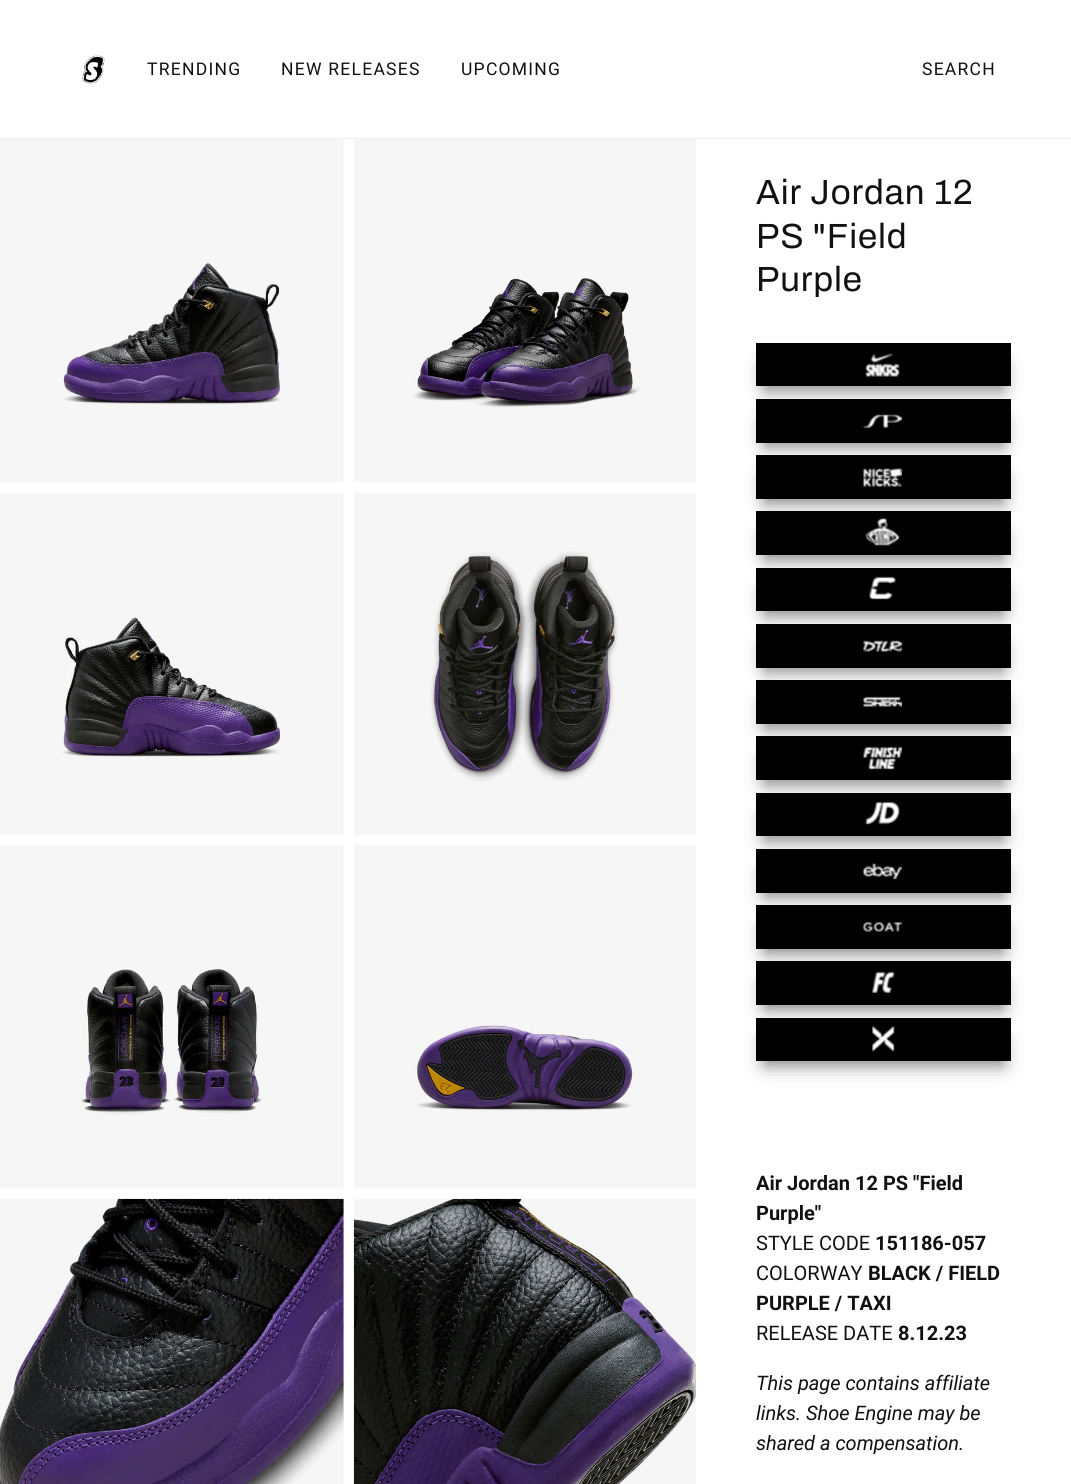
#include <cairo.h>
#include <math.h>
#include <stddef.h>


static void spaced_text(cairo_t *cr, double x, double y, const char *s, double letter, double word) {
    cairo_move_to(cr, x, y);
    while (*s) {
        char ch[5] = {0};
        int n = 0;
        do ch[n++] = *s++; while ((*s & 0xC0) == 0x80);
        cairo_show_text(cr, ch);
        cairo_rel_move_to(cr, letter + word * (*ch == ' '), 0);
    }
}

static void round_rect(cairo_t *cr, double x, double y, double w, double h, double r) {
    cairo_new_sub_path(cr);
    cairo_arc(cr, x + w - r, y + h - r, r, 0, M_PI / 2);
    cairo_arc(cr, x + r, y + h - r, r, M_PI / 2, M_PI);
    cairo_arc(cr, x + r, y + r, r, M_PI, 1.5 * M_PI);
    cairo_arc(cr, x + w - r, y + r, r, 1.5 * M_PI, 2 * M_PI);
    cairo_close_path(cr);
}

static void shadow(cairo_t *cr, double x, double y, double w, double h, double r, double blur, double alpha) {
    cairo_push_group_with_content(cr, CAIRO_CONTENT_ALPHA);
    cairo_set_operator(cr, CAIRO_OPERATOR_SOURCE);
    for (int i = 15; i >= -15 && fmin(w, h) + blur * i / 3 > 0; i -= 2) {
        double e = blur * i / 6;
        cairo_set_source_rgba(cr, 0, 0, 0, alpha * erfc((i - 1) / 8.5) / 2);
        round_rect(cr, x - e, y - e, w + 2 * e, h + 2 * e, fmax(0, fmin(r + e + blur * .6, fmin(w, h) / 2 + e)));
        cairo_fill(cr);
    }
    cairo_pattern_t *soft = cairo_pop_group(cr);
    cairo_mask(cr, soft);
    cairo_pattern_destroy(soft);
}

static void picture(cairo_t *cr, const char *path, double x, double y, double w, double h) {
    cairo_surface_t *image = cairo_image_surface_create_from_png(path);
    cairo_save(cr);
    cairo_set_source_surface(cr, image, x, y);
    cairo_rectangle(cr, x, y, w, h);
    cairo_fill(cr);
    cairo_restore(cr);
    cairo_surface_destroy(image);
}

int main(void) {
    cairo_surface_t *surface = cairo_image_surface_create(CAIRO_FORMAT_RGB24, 1071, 1484);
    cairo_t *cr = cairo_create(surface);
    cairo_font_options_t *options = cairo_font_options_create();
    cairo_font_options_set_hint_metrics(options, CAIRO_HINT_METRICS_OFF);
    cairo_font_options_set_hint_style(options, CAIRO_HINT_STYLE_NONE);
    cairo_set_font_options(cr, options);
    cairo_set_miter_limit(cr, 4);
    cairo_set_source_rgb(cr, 1, 1, 1);
    cairo_paint(cr);
    cairo_set_source_rgb(cr, 0.933, 0.933, 0.933);
    cairo_rectangle(cr, 0, 138, 1071, 1);
    cairo_fill(cr);
    picture(cr, "img1.png", 82, 55, 23, 29);
    cairo_select_font_face(cr, "Roboto", CAIRO_FONT_SLANT_NORMAL, CAIRO_FONT_WEIGHT_NORMAL);
    cairo_set_font_size(cr, 17.5);
    cairo_set_source_rgb(cr, 0.067, 0.067, 0.067);
    spaced_text(cr, 147, 75, "TRENDING", 1.25, 0);
    spaced_text(cr, 281, 75, "NEW RELEASES", 1.25, 0);
    spaced_text(cr, 461, 75, "UPCOMING", 1.25, 0);
    spaced_text(cr, 922, 75, "SEARCH", 1.25, 0);
    picture(cr, "img2.png", 0, 139, 344, 343);
    picture(cr, "img3.png", 354, 139, 342, 343);
    picture(cr, "img4.png", 0, 493, 344, 342);
    picture(cr, "img5.png", 354, 493, 342, 342);
    picture(cr, "img6.png", 0, 845, 344, 344);
    picture(cr, "img7.png", 354, 845, 342, 344);
    picture(cr, "img8.png", 0, 1198, 344, 286);
    picture(cr, "img9.png", 353, 1198, 344, 286);
    cairo_select_font_face(cr, "Archivo", CAIRO_FONT_SLANT_NORMAL, CAIRO_FONT_WEIGHT_NORMAL);
    cairo_set_font_size(cr, 35);
    spaced_text(cr, 756, 204, "Air Jordan 12", 0.9, 0);
    spaced_text(cr, 756, 248, "PS \"Field", 0.9, 0);
    spaced_text(cr, 756, 291, "Purple", 0.9, 0);
    cairo_set_source_rgb(cr, 0.49, 0.49, 0.49);
    shadow(cr, 765, 364, 238, 26, 0, 9, 1);
    cairo_set_source_rgb(cr, 0, 0, 0);
    cairo_rectangle(cr, 756, 343, 255, 43);
    cairo_fill(cr);
    picture(cr, "img10.png", 865, 353, 35, 24);
    cairo_set_source_rgb(cr, 0.49, 0.49, 0.49);
    shadow(cr, 765, 420, 238, 26, 0, 9, 1);
    cairo_set_source_rgb(cr, 0, 0, 0);
    cairo_rectangle(cr, 756, 399, 255, 44);
    cairo_fill(cr);
    picture(cr, "img11.png", 863, 414, 39, 14);
    cairo_set_source_rgb(cr, 0.49, 0.49, 0.49);
    shadow(cr, 765, 476, 238, 27, 0, 9, 1);
    cairo_set_source_rgb(cr, 0, 0, 0);
    cairo_rectangle(cr, 756, 455, 255, 44);
    cairo_fill(cr);
    picture(cr, "img12.png", 863, 468, 39, 19);
    cairo_set_source_rgb(cr, 0.49, 0.49, 0.49);
    shadow(cr, 765, 533, 238, 26, 0, 9, 1);
    cairo_set_source_rgb(cr, 0, 0, 0);
    cairo_rectangle(cr, 756, 511, 255, 44);
    cairo_fill(cr);
    picture(cr, "img13.png", 865, 518, 35, 28);
    cairo_set_source_rgb(cr, 0.49, 0.49, 0.49);
    shadow(cr, 765, 589, 238, 26, 0, 9, 1);
    cairo_set_source_rgb(cr, 0, 0, 0);
    cairo_rectangle(cr, 756, 568, 255, 43);
    cairo_fill(cr);
    picture(cr, "img14.png", 869, 576, 27, 24);
    cairo_set_source_rgb(cr, 0.49, 0.49, 0.49);
    shadow(cr, 765, 645, 238, 26, 0, 9, 1);
    cairo_set_source_rgb(cr, 0, 0, 0);
    cairo_rectangle(cr, 756, 624, 255, 44);
    cairo_fill(cr);
    picture(cr, "img15.png", 863, 640, 39, 12);
    cairo_set_source_rgb(cr, 0.49, 0.49, 0.49);
    shadow(cr, 765, 701, 238, 27, 0, 9, 1);
    cairo_set_source_rgb(cr, 0, 0, 0);
    cairo_rectangle(cr, 756, 680, 255, 44);
    cairo_fill(cr);
    picture(cr, "img16.png", 863, 696, 39, 11);
    cairo_set_source_rgb(cr, 0.49, 0.49, 0.49);
    shadow(cr, 765, 758, 238, 26, 0, 9, 1);
    cairo_set_source_rgb(cr, 0, 0, 0);
    cairo_rectangle(cr, 756, 736, 255, 44);
    cairo_fill(cr);
    picture(cr, "img17.png", 863, 746, 39, 24);
    cairo_set_source_rgb(cr, 0.49, 0.49, 0.49);
    shadow(cr, 765, 814, 238, 26, 0, 9, 1);
    cairo_set_source_rgb(cr, 0, 0, 0);
    cairo_rectangle(cr, 756, 793, 255, 43);
    cairo_fill(cr);
    picture(cr, "img18.png", 865, 801, 35, 24);
    cairo_set_source_rgb(cr, 0.49, 0.49, 0.49);
    shadow(cr, 765, 870, 238, 26, 0, 9, 1);
    cairo_set_source_rgb(cr, 0, 0, 0);
    cairo_rectangle(cr, 756, 849, 255, 44);
    cairo_fill(cr);
    picture(cr, "img19.png", 863, 863, 39, 17);
    cairo_set_source_rgb(cr, 0.49, 0.49, 0.49);
    shadow(cr, 765, 926, 238, 27, 0, 9, 1);
    cairo_set_source_rgb(cr, 0, 0, 0);
    cairo_rectangle(cr, 756, 905, 255, 44);
    cairo_fill(cr);
    picture(cr, "img20.png", 863, 921, 39, 11);
    cairo_set_source_rgb(cr, 0.49, 0.49, 0.49);
    shadow(cr, 765, 983, 238, 26, 0, 9, 1);
    cairo_set_source_rgb(cr, 0, 0, 0);
    cairo_rectangle(cr, 756, 961, 255, 44);
    cairo_fill(cr);
    picture(cr, "img21.png", 872, 971, 23, 22);
    cairo_set_source_rgb(cr, 0.49, 0.49, 0.49);
    shadow(cr, 765, 1039, 238, 26, 0, 9, 1);
    cairo_set_source_rgb(cr, 0, 0, 0);
    cairo_rectangle(cr, 756, 1018, 255, 43);
    cairo_fill(cr);
    picture(cr, "img22.png", 871, 1025, 24, 27);
    cairo_select_font_face(cr, "Roboto", CAIRO_FONT_SLANT_NORMAL, CAIRO_FONT_WEIGHT_BOLD);
    cairo_set_font_size(cr, 20);
    cairo_set_source_rgb(cr, 0.067, 0.067, 0.067);
    cairo_move_to(cr, 756, 1190);
    cairo_show_text(cr, "Air Jordan 12 PS \"Field");
    cairo_move_to(cr, 756, 1220);
    cairo_show_text(cr, "Purple\"");
    cairo_select_font_face(cr, "Roboto", CAIRO_FONT_SLANT_NORMAL, CAIRO_FONT_WEIGHT_NORMAL);
    cairo_move_to(cr, 756, 1250);
    cairo_show_text(cr, "STYLE CODE");
    cairo_select_font_face(cr, "Roboto", CAIRO_FONT_SLANT_NORMAL, CAIRO_FONT_WEIGHT_BOLD);
    cairo_move_to(cr, 875, 1250);
    cairo_show_text(cr, "151186-057");
    cairo_select_font_face(cr, "Roboto", CAIRO_FONT_SLANT_NORMAL, CAIRO_FONT_WEIGHT_NORMAL);
    cairo_move_to(cr, 756, 1280);
    cairo_show_text(cr, "COLORWAY");
    cairo_select_font_face(cr, "Roboto", CAIRO_FONT_SLANT_NORMAL, CAIRO_FONT_WEIGHT_BOLD);
    cairo_move_to(cr, 868, 1280);
    cairo_show_text(cr, "BLACK / FIELD");
    cairo_move_to(cr, 756, 1310);
    cairo_show_text(cr, "PURPLE / TAXI");
    cairo_select_font_face(cr, "Roboto", CAIRO_FONT_SLANT_NORMAL, CAIRO_FONT_WEIGHT_NORMAL);
    cairo_move_to(cr, 756, 1340);
    cairo_show_text(cr, "RELEASE DATE");
    cairo_select_font_face(cr, "Roboto", CAIRO_FONT_SLANT_NORMAL, CAIRO_FONT_WEIGHT_BOLD);
    cairo_move_to(cr, 898, 1340);
    cairo_show_text(cr, "8.12.23");
    cairo_select_font_face(cr, "Roboto", CAIRO_FONT_SLANT_ITALIC, CAIRO_FONT_WEIGHT_NORMAL);
    cairo_move_to(cr, 756, 1390);
    cairo_show_text(cr, "This page contains affiliate");
    cairo_move_to(cr, 756, 1420);
    cairo_show_text(cr, "links. Shoe Engine may be");
    cairo_move_to(cr, 756, 1450);
    cairo_show_text(cr, "shared a compensation.");
    cairo_surface_write_to_png(surface, "page.png");
    cairo_font_options_destroy(options);
    cairo_destroy(cr);
    cairo_surface_destroy(surface);
    return 0;
}
